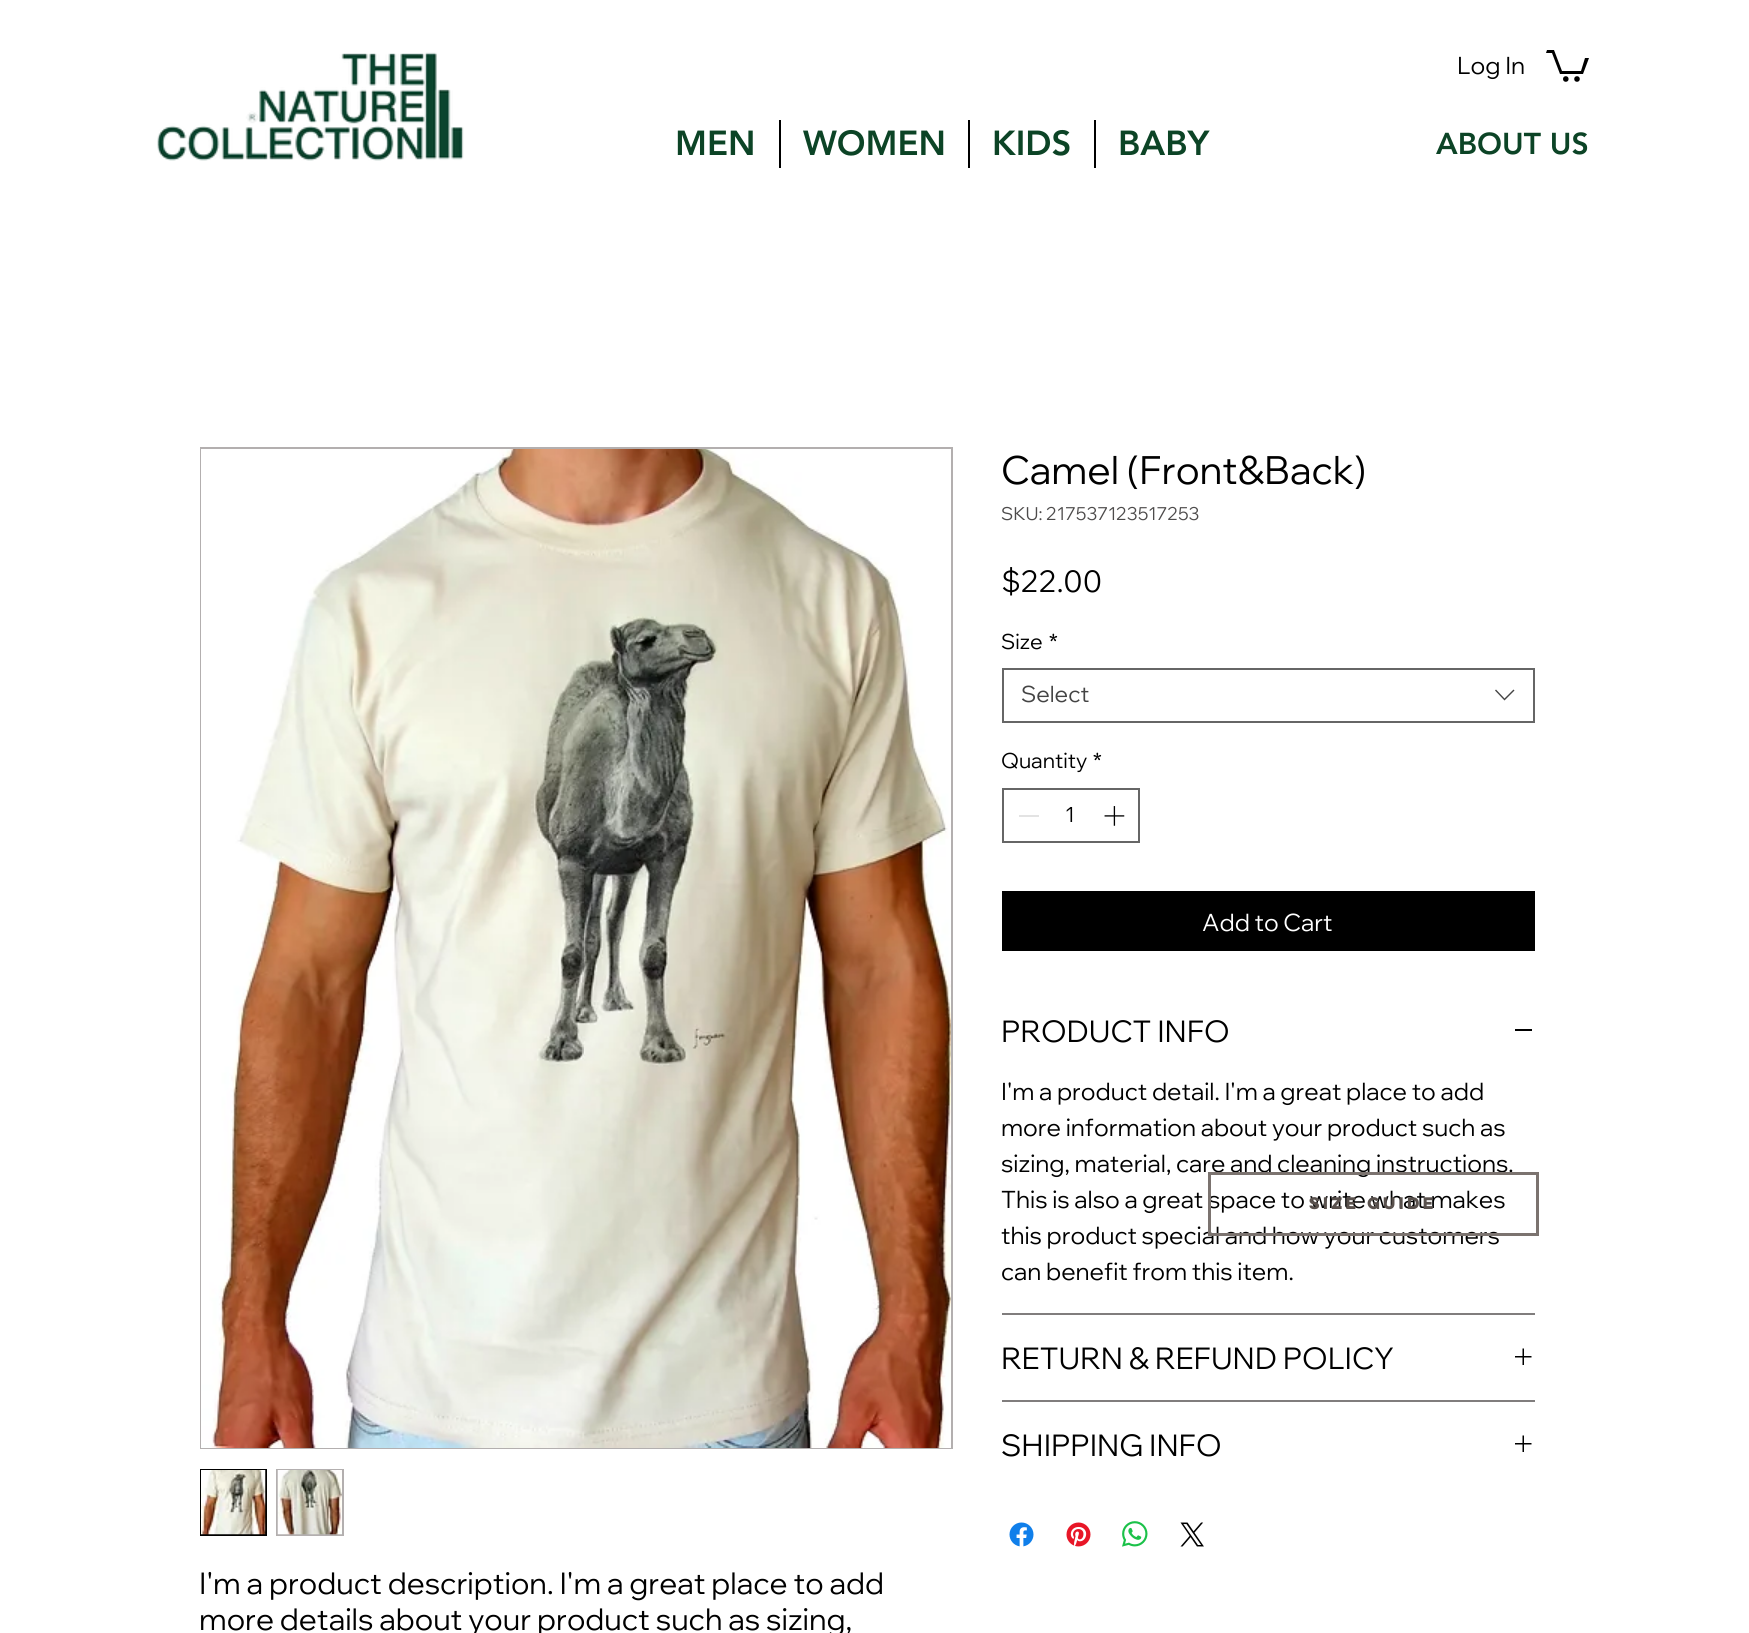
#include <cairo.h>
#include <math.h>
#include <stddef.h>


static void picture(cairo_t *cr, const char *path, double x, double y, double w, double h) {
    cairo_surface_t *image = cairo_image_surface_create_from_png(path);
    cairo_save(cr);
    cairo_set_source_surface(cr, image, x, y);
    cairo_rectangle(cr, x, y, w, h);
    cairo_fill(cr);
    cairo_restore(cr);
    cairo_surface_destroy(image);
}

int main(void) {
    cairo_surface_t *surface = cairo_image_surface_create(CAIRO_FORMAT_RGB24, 1749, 1633);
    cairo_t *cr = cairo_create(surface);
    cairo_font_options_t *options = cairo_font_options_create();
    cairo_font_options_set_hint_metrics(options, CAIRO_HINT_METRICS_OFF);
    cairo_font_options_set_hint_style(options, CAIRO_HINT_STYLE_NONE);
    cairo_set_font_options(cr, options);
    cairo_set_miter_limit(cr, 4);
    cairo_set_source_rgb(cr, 1, 1, 1);
    cairo_paint(cr);
    picture(cr, "img1.png", 157, 52, 307, 109);
    cairo_select_font_face(cr, "Wix Madefor Display", CAIRO_FONT_SLANT_NORMAL, CAIRO_FONT_WEIGHT_NORMAL);
    cairo_set_font_size(cr, 24);
    cairo_set_source_rgb(cr, 0, 0, 0);
    cairo_move_to(cr, 1457, 74);
    cairo_show_text(cr, "Log In");
    cairo_new_path(cr);
    cairo_move_to(cr, 1589, 58);
    cairo_line_to(cr, 1583, 74);
    cairo_line_to(cr, 1560, 74);
    cairo_line_to(cr, 1552, 53);
    cairo_line_to(cr, 1546, 53);
    cairo_line_to(cr, 1547, 50);
    cairo_line_to(cr, 1554, 50);
    cairo_line_to(cr, 1562, 71);
    cairo_line_to(cr, 1581, 71);
    cairo_line_to(cr, 1585, 58);
    cairo_fill(cr);
    cairo_arc(cr, 1577, 79, 2.8, 0, 2 * M_PI);
    cairo_fill(cr);
    cairo_arc(cr, 1565.8, 79, 2.8, 0, 2 * M_PI);
    cairo_fill(cr);
    cairo_select_font_face(cr, "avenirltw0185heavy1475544 Black", CAIRO_FONT_SLANT_NORMAL, CAIRO_FONT_WEIGHT_NORMAL);
    cairo_set_font_size(cr, 34.5);
    cairo_set_source_rgb(cr, 0.047, 0.267, 0.149);
    cairo_move_to(cr, 675, 155);
    cairo_show_text(cr, "MEN");
    cairo_set_source_rgb(cr, 0, 0, 0);
    cairo_rectangle(cr, 779, 120, 2, 48);
    cairo_fill(cr);
    cairo_set_source_rgb(cr, 0.047, 0.267, 0.149);
    cairo_move_to(cr, 803, 155);
    cairo_show_text(cr, "WOMEN");
    cairo_set_source_rgb(cr, 0, 0, 0);
    cairo_rectangle(cr, 968, 120, 2, 48);
    cairo_fill(cr);
    cairo_set_source_rgb(cr, 0.047, 0.267, 0.149);
    cairo_move_to(cr, 992, 155);
    cairo_show_text(cr, "KIDS");
    cairo_set_source_rgb(cr, 0, 0, 0);
    cairo_rectangle(cr, 1094, 120, 2, 48);
    cairo_fill(cr);
    cairo_set_source_rgb(cr, 0.047, 0.267, 0.149);
    cairo_move_to(cr, 1118, 155);
    cairo_show_text(cr, "BABY");
    cairo_set_font_size(cr, 30);
    cairo_move_to(cr, 1436, 154);
    cairo_show_text(cr, "ABOUT US");
    cairo_select_font_face(cr, "Wix Madefor Display", CAIRO_FONT_SLANT_NORMAL, CAIRO_FONT_WEIGHT_NORMAL);
    cairo_set_font_size(cr, 39);
    cairo_set_source_rgb(cr, 0, 0, 0);
    cairo_move_to(cr, 1001, 484);
    cairo_show_text(cr, "Camel (Front&Back)");
    cairo_set_font_size(cr, 18);
    cairo_set_source_rgb(cr, 0.302, 0.294, 0.294);
    cairo_move_to(cr, 1001, 520);
    cairo_show_text(cr, "SKU: 217537123517253");
    cairo_set_font_size(cr, 30);
    cairo_set_source_rgb(cr, 0, 0, 0);
    cairo_move_to(cr, 1001, 592);
    cairo_show_text(cr, "$22.00");
    cairo_set_font_size(cr, 21);
    cairo_move_to(cr, 1001, 649);
    cairo_show_text(cr, "Size");
    cairo_move_to(cr, 1049, 649);
    cairo_show_text(cr, "*");
    cairo_rectangle(cr, 1003, 669, 531, 53);
    cairo_set_source_rgb(cr, 0.4, 0.4, 0.4);
    cairo_stroke(cr);
    cairo_set_font_size(cr, 22.5);
    cairo_set_source_rgb(cr, 0.267, 0.267, 0.267);
    cairo_move_to(cr, 1021, 702);
    cairo_show_text(cr, "Select");
    cairo_set_fill_rule(cr, CAIRO_FILL_RULE_EVEN_ODD);
    cairo_new_path(cr);
    cairo_move_to(cr, 1513.5, 689.5);
    cairo_line_to(cr, 1514.5, 690.5);
    cairo_line_to(cr, 1504.5, 700.5);
    cairo_line_to(cr, 1495, 690.5);
    cairo_line_to(cr, 1496, 689.5);
    cairo_line_to(cr, 1504.5, 698.5);
    cairo_close_path(cr);
    cairo_fill(cr);
    cairo_set_font_size(cr, 21);
    cairo_set_source_rgb(cr, 0, 0, 0);
    cairo_move_to(cr, 1001, 768);
    cairo_show_text(cr, "Quantity");
    cairo_move_to(cr, 1093, 768);
    cairo_show_text(cr, "*");
    cairo_rectangle(cr, 1003, 789, 136, 53);
    cairo_set_source_rgb(cr, 0.4, 0.4, 0.4);
    cairo_stroke(cr);
    cairo_set_source_rgb(cr, 0.89, 0.89, 0.89);
    cairo_rectangle(cr, 1019, 815, 20, 2);
    cairo_fill(cr);
    cairo_set_source_rgb(cr, 0, 0, 0);
    cairo_move_to(cr, 1065, 822);
    cairo_show_text(cr, "1");
    picture(cr, "img2.png", 1104, 806, 21, 20);
    cairo_rectangle(cr, 1002, 891, 533, 60);
    cairo_fill(cr);
    cairo_set_font_size(cr, 24);
    cairo_set_source_rgb(cr, 1, 1, 1);
    cairo_move_to(cr, 1202, 931);
    cairo_show_text(cr, "Add to Cart");
    cairo_set_source_rgb(cr, 0.502, 0.49, 0.49);
    cairo_rectangle(cr, 1002, 1313, 533, 2);
    cairo_fill(cr);
    cairo_set_font_size(cr, 30);
    cairo_set_source_rgb(cr, 0, 0, 0);
    cairo_move_to(cr, 1001, 1042);
    cairo_show_text(cr, "PRODUCT INFO");
    cairo_rectangle(cr, 1515, 1029, 17, 2);
    cairo_fill(cr);
    cairo_set_font_size(cr, 24);
    cairo_move_to(cr, 1001, 1100);
    cairo_show_text(cr, "I'm a product detail. I'm a great place to add");
    cairo_move_to(cr, 1001, 1136);
    cairo_show_text(cr, "more information about your product such as");
    cairo_move_to(cr, 1001, 1172);
    cairo_show_text(cr, "sizing, material, care and cleaning instructions.");
    cairo_move_to(cr, 1001, 1208);
    cairo_show_text(cr, "This is also a great space to write what makes");
    cairo_move_to(cr, 1001, 1244);
    cairo_show_text(cr, "this product special and how your customers");
    cairo_move_to(cr, 1001, 1280);
    cairo_show_text(cr, "can benefit from this item.");
    cairo_set_source_rgb(cr, 0.502, 0.49, 0.49);
    cairo_rectangle(cr, 1002, 1400, 533, 2);
    cairo_fill(cr);
    cairo_set_font_size(cr, 30);
    cairo_set_source_rgb(cr, 0, 0, 0);
    cairo_move_to(cr, 1001, 1369);
    cairo_show_text(cr, "RETURN & REFUND POLICY");
    picture(cr, "img3.png", 1515, 1348, 17, 17);
    cairo_move_to(cr, 1001, 1456);
    cairo_show_text(cr, "SHIPPING INFO");
    picture(cr, "img3.png", 1515, 1435, 17, 17);
    picture(cr, "img4.png", 1009, 1522, 25, 25);
    picture(cr, "img5.png", 1066, 1522, 25, 25);
    picture(cr, "img6.png", 1122, 1521, 26, 26);
    picture(cr, "img7.png", 1180, 1522, 24, 25);
    cairo_rectangle(cr, 201, 448, 751, 1000);
    cairo_set_source_rgb(cr, 0.702, 0.686, 0.686);
    cairo_stroke(cr);
    picture(cr, "img8.png", 201, 449, 750, 999);
    cairo_rectangle(cr, 201, 1470, 65, 65);
    cairo_set_source_rgb(cr, 0, 0, 0);
    cairo_stroke(cr);
    picture(cr, "img9.png", 201, 1470, 65, 65);
    cairo_set_source_rgb(cr, 0.702, 0.686, 0.686);
    cairo_rectangle(cr, 276, 1469, 68, 67);
    cairo_fill(cr);
    picture(cr, "img10.png", 277, 1470, 65, 65);
    cairo_set_source_rgb(cr, 0, 0, 0);
    cairo_move_to(cr, 199, 1594);
    cairo_show_text(cr, "I'm a product description. I'm a great place to add");
    cairo_move_to(cr, 199, 1630);
    cairo_show_text(cr, "more details about your product such as sizing,");
    cairo_rectangle(cr, 1209.5, 1173.5, 328, 61);
    cairo_set_source_rgb(cr, 0.482, 0.451, 0.435);
    cairo_set_line_width(cr, 3);
    cairo_stroke(cr);
    cairo_select_font_face(cr, "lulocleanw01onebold", CAIRO_FONT_SLANT_NORMAL, CAIRO_FONT_WEIGHT_BOLD);
    cairo_set_font_size(cr, 15);
    cairo_set_source_rgb(cr, 0.349, 0.318, 0.302);
    cairo_move_to(cr, 1309, 1209);
    cairo_show_text(cr, "Size guide");
    cairo_surface_write_to_png(surface, "page.png");
    cairo_font_options_destroy(options);
    cairo_destroy(cr);
    cairo_surface_destroy(surface);
    return 0;
}
